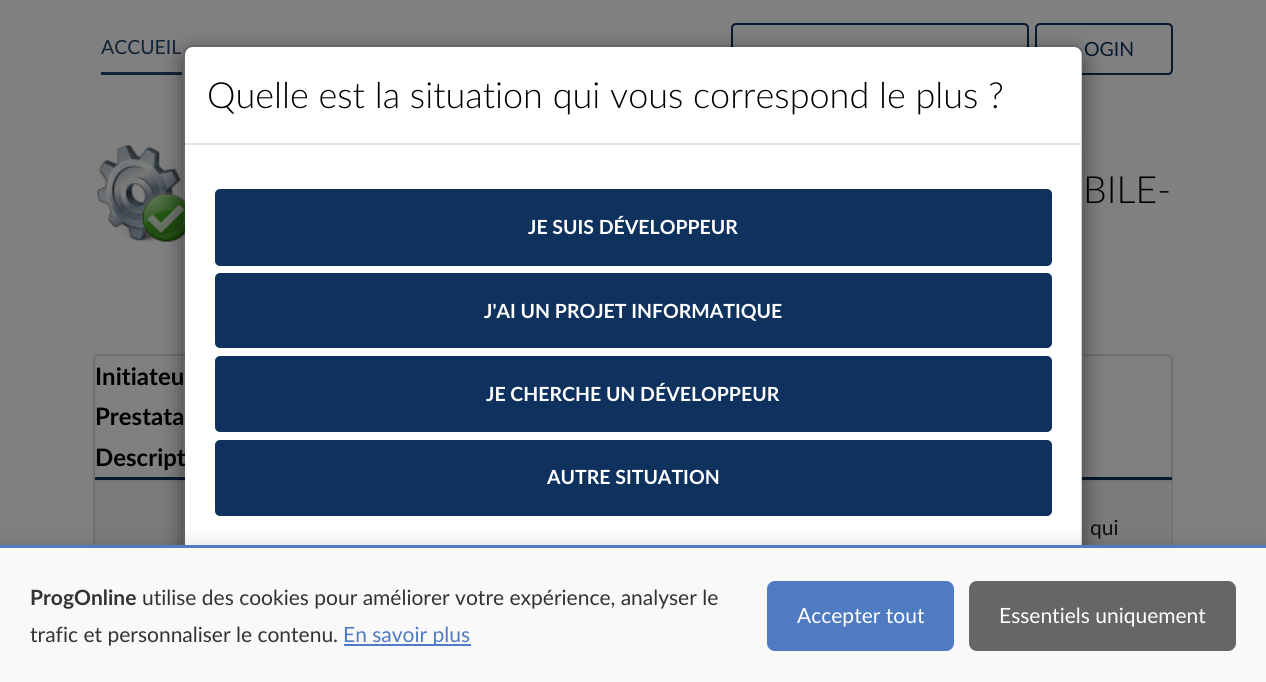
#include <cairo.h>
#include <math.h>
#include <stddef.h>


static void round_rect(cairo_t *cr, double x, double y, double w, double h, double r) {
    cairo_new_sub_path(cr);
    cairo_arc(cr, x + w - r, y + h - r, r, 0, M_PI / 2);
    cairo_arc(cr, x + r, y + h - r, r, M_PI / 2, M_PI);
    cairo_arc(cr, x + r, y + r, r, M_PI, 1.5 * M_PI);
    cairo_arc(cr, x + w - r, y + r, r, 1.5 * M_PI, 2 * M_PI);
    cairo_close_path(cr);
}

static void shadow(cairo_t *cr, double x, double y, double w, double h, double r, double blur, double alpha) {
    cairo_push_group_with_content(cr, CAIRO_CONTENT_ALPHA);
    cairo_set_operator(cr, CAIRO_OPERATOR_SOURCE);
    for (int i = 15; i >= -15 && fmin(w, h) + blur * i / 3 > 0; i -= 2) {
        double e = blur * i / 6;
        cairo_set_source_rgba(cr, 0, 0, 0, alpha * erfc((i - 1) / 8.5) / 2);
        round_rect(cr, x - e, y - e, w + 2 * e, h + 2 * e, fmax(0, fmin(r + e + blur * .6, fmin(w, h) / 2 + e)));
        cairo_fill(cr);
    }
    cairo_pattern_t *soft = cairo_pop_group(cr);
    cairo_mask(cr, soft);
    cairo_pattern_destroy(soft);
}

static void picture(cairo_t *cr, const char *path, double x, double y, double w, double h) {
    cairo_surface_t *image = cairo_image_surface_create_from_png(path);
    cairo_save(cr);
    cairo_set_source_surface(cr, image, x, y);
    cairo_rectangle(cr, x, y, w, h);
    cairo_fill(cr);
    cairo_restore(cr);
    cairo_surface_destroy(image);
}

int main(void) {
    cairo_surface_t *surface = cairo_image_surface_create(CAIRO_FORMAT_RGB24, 1266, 682);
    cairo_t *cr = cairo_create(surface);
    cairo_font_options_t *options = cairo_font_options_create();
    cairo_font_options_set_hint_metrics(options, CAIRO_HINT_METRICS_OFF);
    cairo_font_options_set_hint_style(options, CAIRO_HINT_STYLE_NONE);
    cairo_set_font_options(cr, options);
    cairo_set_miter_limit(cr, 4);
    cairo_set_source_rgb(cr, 0.502, 0.502, 0.502);
    cairo_paint(cr);
    cairo_set_source_rgb(cr, 0.078, 0.137, 0.216);
    cairo_rectangle(cr, 101, 72, 81, 3);
    cairo_fill(cr);
    cairo_select_font_face(cr, "Lato", CAIRO_FONT_SLANT_NORMAL, CAIRO_FONT_WEIGHT_NORMAL);
    cairo_set_font_size(cr, 19.5);
    cairo_move_to(cr, 101, 54);
    cairo_show_text(cr, "ACCUEIL");
    round_rect(cr, 732, 24, 296, 50, 4);
    cairo_set_source_rgb(cr, 0.031, 0.098, 0.184);
    cairo_stroke(cr);
    round_rect(cr, 1036, 24, 136, 50, 4);
    cairo_stroke(cr);
    cairo_move_to(cr, 1084, 56);
    cairo_show_text(cr, "OGIN");
    picture(cr, "img1.png", 97, 145, 88, 97);
    round_rect(cr, 94, 355, 1078, 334, 5);
    cairo_set_source_rgb(cr, 0.435, 0.435, 0.435);
    cairo_stroke(cr);
    cairo_set_source_rgb(cr, 0.482, 0.482, 0.482);
    cairo_rectangle(cr, 95, 482, 1077, 63);
    cairo_fill(cr);
    cairo_set_source_rgb(cr, 0.459, 0.459, 0.459);
    cairo_rectangle(cr, 95, 480, 1077, 2);
    cairo_fill(cr);
    cairo_set_source_rgb(cr, 0.031, 0.098, 0.184);
    cairo_rectangle(cr, 95, 477, 1077, 3);
    cairo_fill(cr);
    cairo_save(cr);
    cairo_set_fill_rule(cr, CAIRO_FILL_RULE_EVEN_ODD);
    cairo_new_path(cr);
    cairo_move_to(cr, 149, 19);
    cairo_line_to(cr, 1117, 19);
    cairo_line_to(cr, 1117, 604);
    cairo_line_to(cr, 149, 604);
    cairo_close_path(cr);
    cairo_move_to(cr, 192, 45);
    cairo_line_to(cr, 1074, 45);
    cairo_curve_to(cr, 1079, 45, 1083, 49, 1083, 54);
    cairo_line_to(cr, 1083, 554);
    cairo_curve_to(cr, 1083, 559, 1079, 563, 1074, 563);
    cairo_line_to(cr, 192, 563);
    cairo_curve_to(cr, 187, 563, 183, 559, 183, 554);
    cairo_line_to(cr, 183, 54);
    cairo_curve_to(cr, 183, 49, 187, 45, 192, 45);
    cairo_close_path(cr);
    cairo_clip(cr);
    cairo_set_source_rgb(cr, 0, 0, 0);
    shadow(cr, 183, 53, 900, 517, 9, 11, 0.5);
    cairo_restore(cr);
    cairo_select_font_face(cr, "Lato", CAIRO_FONT_SLANT_NORMAL, CAIRO_FONT_WEIGHT_BOLD);
    cairo_set_font_size(cr, 24);
    cairo_set_source_rgb(cr, 0, 0, 0);
    cairo_move_to(cr, 95, 466);
    cairo_show_text(cr, "Descript");
    cairo_set_source_rgb(cr, 1, 1, 1);
    round_rect(cr, 185, 47, 897, 514, 8);
    cairo_fill(cr);
    round_rect(cr, 184, 46, 898, 516, 8);
    cairo_set_source_rgba(cr, 0, 0, 0, 0.2);
    cairo_stroke(cr);
    cairo_set_source_rgb(cr, 0.898, 0.898, 0.898);
    cairo_rectangle(cr, 185, 143, 897, 2);
    cairo_fill(cr);
    cairo_select_font_face(cr, "Lato Light", CAIRO_FONT_SLANT_NORMAL, CAIRO_FONT_WEIGHT_NORMAL);
    cairo_set_font_size(cr, 36);
    cairo_set_source_rgb(cr, 0, 0, 0);
    cairo_move_to(cr, 207, 108);
    cairo_show_text(cr, "Quelle est la situation qui vous correspond le plus ?");
    cairo_set_source_rgb(cr, 0.059, 0.192, 0.369);
    round_rect(cr, 216, 190, 835, 75, 4);
    cairo_fill_preserve(cr);
    cairo_stroke(cr);
    cairo_select_font_face(cr, "Lato", CAIRO_FONT_SLANT_NORMAL, CAIRO_FONT_WEIGHT_BOLD);
    cairo_set_font_size(cr, 19.5);
    cairo_set_source_rgb(cr, 1, 1, 1);
    cairo_move_to(cr, 528, 234);
    cairo_show_text(cr, "JE SUIS DÉVELOPPEUR");
    cairo_set_source_rgb(cr, 0.059, 0.192, 0.369);
    round_rect(cr, 216, 274, 835, 73, 4);
    cairo_fill_preserve(cr);
    cairo_stroke(cr);
    cairo_set_source_rgb(cr, 1, 1, 1);
    cairo_move_to(cr, 484, 318);
    cairo_show_text(cr, "J'AI UN PROJET INFORMATIQUE");
    cairo_set_source_rgb(cr, 0.059, 0.192, 0.369);
    round_rect(cr, 216, 357, 835, 74, 4);
    cairo_fill_preserve(cr);
    cairo_stroke(cr);
    cairo_set_source_rgb(cr, 1, 1, 1);
    cairo_move_to(cr, 486, 401);
    cairo_show_text(cr, "JE CHERCHE UN DÉVELOPPEUR");
    cairo_set_source_rgb(cr, 0.059, 0.192, 0.369);
    round_rect(cr, 216, 441, 835, 74, 4);
    cairo_fill_preserve(cr);
    cairo_stroke(cr);
    cairo_set_source_rgb(cr, 1, 1, 1);
    cairo_move_to(cr, 547, 484);
    cairo_show_text(cr, "AUTRE SITUATION");
    cairo_select_font_face(cr, "Lato Light", CAIRO_FONT_SLANT_NORMAL, CAIRO_FONT_WEIGHT_NORMAL);
    cairo_set_font_size(cr, 37.5);
    cairo_set_source_rgb(cr, 0, 0, 0);
    cairo_move_to(cr, 1083, 203);
    cairo_show_text(cr, "BILE-");
    cairo_select_font_face(cr, "Lato", CAIRO_FONT_SLANT_NORMAL, CAIRO_FONT_WEIGHT_BOLD);
    cairo_set_font_size(cr, 24);
    cairo_move_to(cr, 95, 385);
    cairo_show_text(cr, "Initiateu");
    cairo_move_to(cr, 95, 425);
    cairo_show_text(cr, "Prestata");
    cairo_select_font_face(cr, "Lato", CAIRO_FONT_SLANT_NORMAL, CAIRO_FONT_WEIGHT_NORMAL);
    cairo_set_font_size(cr, 21);
    cairo_set_source_rgb(cr, 0.059, 0.059, 0.059);
    cairo_move_to(cr, 1090, 535);
    cairo_show_text(cr, "qui");
    cairo_set_source_rgb(cr, 0, 0, 0);
    shadow(cr, 0, 542, 1266, 138, 0, 7.5, 0.1);
    cairo_set_source_rgb(cr, 0.973, 0.973, 0.973);
    cairo_rectangle(cr, 0, 548, 1266, 134);
    cairo_fill(cr);
    cairo_set_source_rgb(cr, 0.31, 0.482, 0.761);
    cairo_rectangle(cr, 0, 545, 1266, 3);
    cairo_fill(cr);
    cairo_select_font_face(cr, "Lato", CAIRO_FONT_SLANT_NORMAL, CAIRO_FONT_WEIGHT_BOLD);
    cairo_set_source_rgb(cr, 0.2, 0.2, 0.2);
    cairo_move_to(cr, 30, 605);
    cairo_show_text(cr, "ProgOnline");
    cairo_select_font_face(cr, "Lato", CAIRO_FONT_SLANT_NORMAL, CAIRO_FONT_WEIGHT_NORMAL);
    cairo_move_to(cr, 142, 605);
    cairo_show_text(cr, "utilise des cookies pour améliorer votre expérience, analyser le");
    cairo_move_to(cr, 30, 642);
    cairo_show_text(cr, "trafic et personnaliser le contenu.");
    cairo_set_source_rgb(cr, 0.31, 0.482, 0.761);
    cairo_rectangle(cr, 344, 644, 127, 2);
    cairo_fill(cr);
    cairo_move_to(cr, 343, 642);
    cairo_show_text(cr, "En savoir plus");
    round_rect(cr, 767, 581, 187, 70, 8);
    cairo_fill(cr);
    cairo_set_source_rgb(cr, 1, 1, 1);
    cairo_move_to(cr, 797, 623);
    cairo_show_text(cr, "Accepter tout");
    cairo_set_source_rgb(cr, 0.4, 0.4, 0.4);
    round_rect(cr, 969, 581, 267, 70, 8);
    cairo_fill(cr);
    cairo_set_source_rgb(cr, 1, 1, 1);
    cairo_move_to(cr, 999, 623);
    cairo_show_text(cr, "Essentiels uniquement");
    cairo_surface_write_to_png(surface, "page.png");
    cairo_font_options_destroy(options);
    cairo_destroy(cr);
    cairo_surface_destroy(surface);
    return 0;
}
